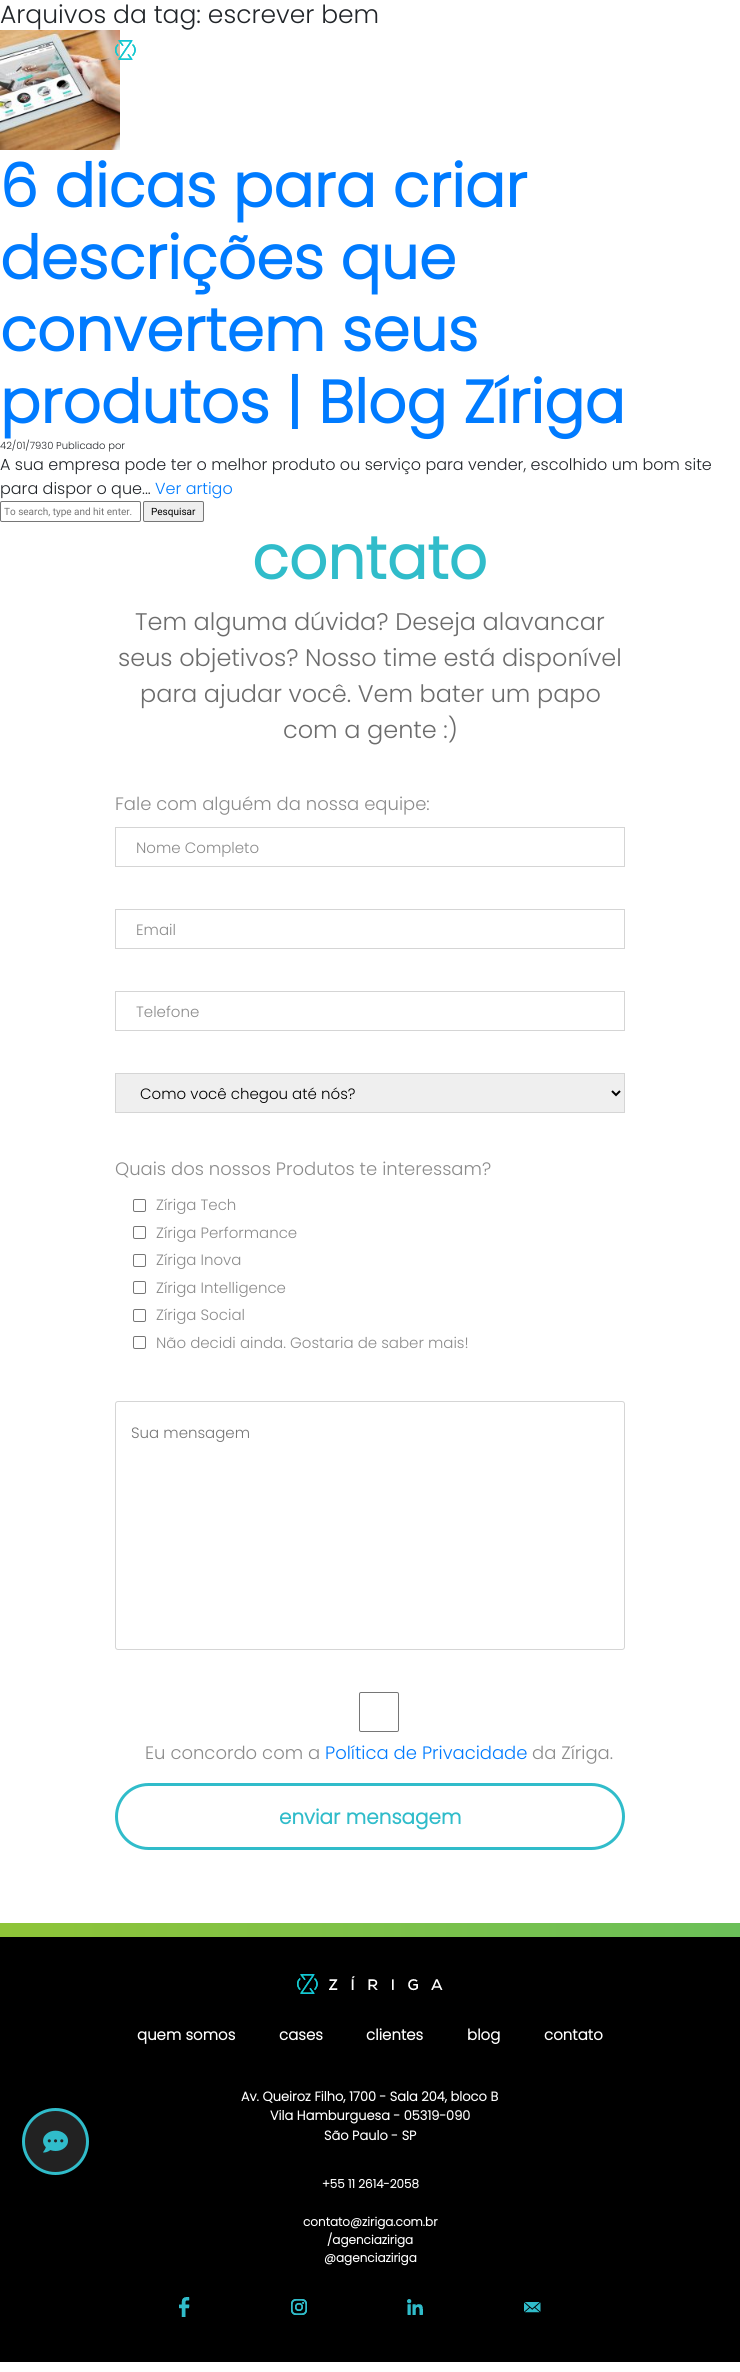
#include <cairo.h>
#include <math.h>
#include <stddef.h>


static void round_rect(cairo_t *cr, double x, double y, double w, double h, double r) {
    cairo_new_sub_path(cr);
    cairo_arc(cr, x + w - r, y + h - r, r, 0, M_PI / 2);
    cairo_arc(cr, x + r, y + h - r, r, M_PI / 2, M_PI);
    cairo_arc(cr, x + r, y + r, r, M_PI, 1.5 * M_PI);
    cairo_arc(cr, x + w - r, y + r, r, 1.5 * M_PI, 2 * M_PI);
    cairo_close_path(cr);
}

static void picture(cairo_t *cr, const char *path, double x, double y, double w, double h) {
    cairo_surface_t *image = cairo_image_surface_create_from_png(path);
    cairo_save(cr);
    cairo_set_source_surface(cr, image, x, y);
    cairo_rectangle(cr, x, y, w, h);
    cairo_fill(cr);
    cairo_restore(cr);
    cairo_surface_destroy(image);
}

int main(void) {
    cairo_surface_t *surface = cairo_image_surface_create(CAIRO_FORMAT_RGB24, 740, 2372);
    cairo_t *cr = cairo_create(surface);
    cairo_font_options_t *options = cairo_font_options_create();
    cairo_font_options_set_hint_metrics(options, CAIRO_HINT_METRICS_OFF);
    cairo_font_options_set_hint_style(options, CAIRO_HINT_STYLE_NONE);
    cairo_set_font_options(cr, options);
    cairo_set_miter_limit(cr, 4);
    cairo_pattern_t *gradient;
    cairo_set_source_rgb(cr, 1, 1, 1);
    cairo_paint(cr);
    cairo_select_font_face(cr, "Poppins Light", CAIRO_FONT_SLANT_NORMAL, CAIRO_FONT_WEIGHT_NORMAL);
    cairo_set_font_size(cr, 25);
    cairo_set_source_rgb(cr, 0.129, 0.145, 0.161);
    cairo_move_to(cr, 0, 23);
    cairo_show_text(cr, "Arquivos da tag: escrever bem");
    picture(cr, "img1.png", 0, 30, 120, 120);
    cairo_select_font_face(cr, "Poppins", CAIRO_FONT_SLANT_NORMAL, CAIRO_FONT_WEIGHT_BOLD);
    cairo_set_font_size(cr, 60);
    cairo_set_source_rgb(cr, 0, 0.482, 1);
    cairo_move_to(cr, 0, 207);
    cairo_show_text(cr, "6 dicas para criar");
    cairo_move_to(cr, 0, 279);
    cairo_show_text(cr, "descrições que");
    cairo_move_to(cr, 0, 351);
    cairo_show_text(cr, "convertem seus");
    cairo_move_to(cr, 0, 423);
    cairo_show_text(cr, "produtos | Blog Zíriga");
    cairo_select_font_face(cr, "Poppins Light", CAIRO_FONT_SLANT_NORMAL, CAIRO_FONT_WEIGHT_NORMAL);
    cairo_set_font_size(cr, 10);
    cairo_set_source_rgb(cr, 0.129, 0.145, 0.161);
    cairo_move_to(cr, 0, 449);
    cairo_show_text(cr, "42/01/7930 Publicado por");
    cairo_set_font_size(cr, 16);
    cairo_move_to(cr, 0, 470);
    cairo_show_text(cr, "A sua empresa pode ter o melhor produto ou serviço para vender, escolhido um bom site");
    cairo_move_to(cr, 0, 494);
    cairo_show_text(cr, "para dispor o que...");
    cairo_set_source_rgb(cr, 0, 0.482, 1);
    cairo_move_to(cr, 155, 494);
    cairo_show_text(cr, "Ver artigo");
    picture(cr, "img2.png", 115, 40, 21, 20);
    cairo_set_source_rgb(cr, 0, 0, 0);
    cairo_rectangle(cr, 0, 1937, 740, 425);
    cairo_fill(cr);
    cairo_set_source_rgb(cr, 0.133, 0.133, 0.133);
    cairo_arc(cr, 55.5, 2141.5, 32, 0, 2 * M_PI);
    cairo_fill_preserve(cr);
    cairo_set_source_rgb(cr, 0.188, 0.737, 0.792);
    cairo_set_line_width(cr, 3);
    cairo_stroke(cr);
    picture(cr, "img3.png", 43, 2130, 25, 23);
    round_rect(cr, 0.5, 501.5, 140, 20, 1.5);
    cairo_set_source_rgb(cr, 0.463, 0.463, 0.463);
    cairo_set_line_width(cr, 1);
    cairo_stroke(cr);
    cairo_select_font_face(cr, "Roboto", CAIRO_FONT_SLANT_NORMAL, CAIRO_FONT_WEIGHT_NORMAL);
    cairo_set_font_size(cr, 10);
    cairo_set_source_rgb(cr, 0.459, 0.459, 0.459);
    cairo_move_to(cr, 4, 515);
    cairo_show_text(cr, "To search, type and hit enter.");
    cairo_set_source_rgb(cr, 0.937, 0.937, 0.937);
    round_rect(cr, 143.5, 501.5, 60, 20, 1.5);
    cairo_fill_preserve(cr);
    cairo_set_source_rgb(cr, 0.463, 0.463, 0.463);
    cairo_stroke(cr);
    cairo_set_source_rgb(cr, 0, 0, 0);
    cairo_move_to(cr, 151, 515);
    cairo_show_text(cr, "Pesquisar");
    cairo_select_font_face(cr, "Poppins", CAIRO_FONT_SLANT_NORMAL, CAIRO_FONT_WEIGHT_BOLD);
    cairo_set_font_size(cr, 60);
    cairo_set_source_rgb(cr, 0.188, 0.737, 0.792);
    cairo_move_to(cr, 252, 579);
    cairo_show_text(cr, "contato");
    cairo_select_font_face(cr, "Poppins Light", CAIRO_FONT_SLANT_NORMAL, CAIRO_FONT_WEIGHT_NORMAL);
    cairo_set_font_size(cr, 24);
    cairo_set_source_rgb(cr, 0.424, 0.424, 0.424);
    cairo_move_to(cr, 135, 630);
    cairo_show_text(cr, "Tem alguma dúvida? Deseja alavancar");
    cairo_move_to(cr, 118, 666);
    cairo_show_text(cr, "seus objetivos? Nosso time está disponível");
    cairo_move_to(cr, 140, 702);
    cairo_show_text(cr, "para ajudar você. Vem bater um papo");
    cairo_move_to(cr, 283, 738);
    cairo_show_text(cr, "com a gente :)");
    cairo_set_font_size(cr, 18);
    cairo_set_source_rgb(cr, 0.545, 0.545, 0.545);
    cairo_move_to(cr, 115, 810);
    cairo_show_text(cr, "Fale com alguém da nossa equipe:");
    cairo_rectangle(cr, 115.5, 827.5, 509, 39);
    cairo_set_source_rgb(cr, 0.835, 0.835, 0.835);
    cairo_stroke(cr);
    cairo_set_font_size(cr, 15);
    cairo_set_source_rgb(cr, 0.545, 0.545, 0.545);
    cairo_move_to(cr, 136, 853);
    cairo_show_text(cr, "Nome Completo");
    cairo_rectangle(cr, 115.5, 909.5, 509, 39);
    cairo_set_source_rgb(cr, 0.835, 0.835, 0.835);
    cairo_stroke(cr);
    cairo_set_source_rgb(cr, 0.545, 0.545, 0.545);
    cairo_move_to(cr, 136, 935);
    cairo_show_text(cr, "Email");
    cairo_rectangle(cr, 115.5, 991.5, 509, 39);
    cairo_set_source_rgb(cr, 0.835, 0.835, 0.835);
    cairo_stroke(cr);
    cairo_set_source_rgb(cr, 0.545, 0.545, 0.545);
    cairo_move_to(cr, 136, 1017);
    cairo_show_text(cr, "Telefone");
    cairo_set_source_rgb(cr, 0.937, 0.937, 0.937);
    cairo_rectangle(cr, 115.5, 1073.5, 509, 39);
    cairo_fill_preserve(cr);
    cairo_set_source_rgb(cr, 0.835, 0.835, 0.835);
    cairo_stroke(cr);
    cairo_new_path(cr);
    cairo_move_to(cr, 612, 1091);
    cairo_line_to(cr, 616, 1095);
    cairo_line_to(cr, 620, 1091);
    cairo_set_source_rgb(cr, 0, 0, 0);
    cairo_set_line_width(cr, 2);
    cairo_stroke(cr);
    cairo_move_to(cr, 140, 1099);
    cairo_show_text(cr, "Como você chegou até nós?");
    cairo_set_font_size(cr, 18);
    cairo_set_source_rgb(cr, 0.545, 0.545, 0.545);
    cairo_move_to(cr, 115, 1175);
    cairo_show_text(cr, "Quais dos nossos Produtos te interessam?");
    round_rect(cr, 133.5, 1199.5, 12, 12, 1.5);
    cairo_set_source_rgb(cr, 0.463, 0.463, 0.463);
    cairo_set_line_width(cr, 1);
    cairo_stroke(cr);
    cairo_set_font_size(cr, 15);
    cairo_set_source_rgb(cr, 0.545, 0.545, 0.545);
    cairo_move_to(cr, 156, 1210);
    cairo_show_text(cr, "Zíriga Tech");
    round_rect(cr, 133.5, 1226.5, 12, 12, 1.5);
    cairo_set_source_rgb(cr, 0.463, 0.463, 0.463);
    cairo_stroke(cr);
    cairo_set_source_rgb(cr, 0.545, 0.545, 0.545);
    cairo_move_to(cr, 156, 1238);
    cairo_show_text(cr, "Zíriga Performance");
    round_rect(cr, 133.5, 1254.5, 12, 12, 1.5);
    cairo_set_source_rgb(cr, 0.463, 0.463, 0.463);
    cairo_stroke(cr);
    cairo_set_source_rgb(cr, 0.545, 0.545, 0.545);
    cairo_move_to(cr, 156, 1265);
    cairo_show_text(cr, "Zíriga Inova");
    round_rect(cr, 133.5, 1281.5, 12, 12, 1.5);
    cairo_set_source_rgb(cr, 0.463, 0.463, 0.463);
    cairo_stroke(cr);
    cairo_set_source_rgb(cr, 0.545, 0.545, 0.545);
    cairo_move_to(cr, 156, 1293);
    cairo_show_text(cr, "Zíriga Intelligence");
    round_rect(cr, 133.5, 1309.5, 12, 12, 1.5);
    cairo_set_source_rgb(cr, 0.463, 0.463, 0.463);
    cairo_stroke(cr);
    cairo_set_source_rgb(cr, 0.545, 0.545, 0.545);
    cairo_move_to(cr, 156, 1320);
    cairo_show_text(cr, "Zíriga Social");
    round_rect(cr, 133.5, 1336.5, 12, 12, 1.5);
    cairo_set_source_rgb(cr, 0.463, 0.463, 0.463);
    cairo_stroke(cr);
    cairo_set_source_rgb(cr, 0.545, 0.545, 0.545);
    cairo_move_to(cr, 156, 1348);
    cairo_show_text(cr, "Não decidi ainda. Gostaria de saber mais!");
    round_rect(cr, 115.5, 1401.5, 509, 248, 2.5);
    cairo_set_source_rgb(cr, 0.835, 0.835, 0.835);
    cairo_stroke(cr);
    cairo_set_source_rgb(cr, 0.459, 0.459, 0.459);
    cairo_move_to(cr, 131, 1438);
    cairo_show_text(cr, "Sua mensagem");
    round_rect(cr, 359.5, 1692.5, 39, 39, 1.5);
    cairo_set_source_rgb(cr, 0.463, 0.463, 0.463);
    cairo_stroke(cr);
    cairo_set_font_size(cr, 18);
    cairo_set_source_rgb(cr, 0.545, 0.545, 0.545);
    cairo_move_to(cr, 145, 1759);
    cairo_show_text(cr, "Eu concordo com a");
    cairo_set_source_rgb(cr, 0, 0.482, 1);
    cairo_move_to(cr, 325, 1759);
    cairo_show_text(cr, "Política de Privacidade");
    cairo_set_source_rgb(cr, 0.545, 0.545, 0.545);
    cairo_move_to(cr, 532, 1759);
    cairo_show_text(cr, "da Zíriga.");
    round_rect(cr, 116.5, 1784.5, 507, 64, 32);
    cairo_set_source_rgb(cr, 0.188, 0.737, 0.792);
    cairo_set_line_width(cr, 3);
    cairo_stroke(cr);
    cairo_select_font_face(cr, "Poppins", CAIRO_FONT_SLANT_NORMAL, CAIRO_FONT_WEIGHT_BOLD);
    cairo_set_font_size(cr, 20);
    cairo_move_to(cr, 279, 1824);
    cairo_show_text(cr, "enviar mensagem");
    gradient = cairo_pattern_create_linear(0, 1951, 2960, 1951);
    cairo_pattern_add_color_stop_rgba(gradient, 0, 0.561, 0.769, 0.22, 1);
    cairo_pattern_add_color_stop_rgba(gradient, 1, 0, 0.694, 0.733, 1);
    cairo_set_source(cr, gradient);
    cairo_pattern_destroy(gradient);
    cairo_rectangle(cr, 0, 1923, 740, 14);
    cairo_fill(cr);
    picture(cr, "img4.png", 297, 1974, 146, 20);
    cairo_set_font_size(cr, 15);
    cairo_set_source_rgb(cr, 1, 1, 1);
    cairo_move_to(cr, 137, 2040);
    cairo_show_text(cr, "quem somos");
    cairo_move_to(cr, 279, 2040);
    cairo_show_text(cr, "cases");
    cairo_move_to(cr, 366, 2040);
    cairo_show_text(cr, "clientes");
    cairo_move_to(cr, 467, 2040);
    cairo_show_text(cr, "blog");
    cairo_move_to(cr, 544, 2040);
    cairo_show_text(cr, "contato");
    cairo_set_font_size(cr, 13);
    cairo_move_to(cr, 241, 2101);
    cairo_show_text(cr, "Av. Queiroz Filho, 1700 - Sala 204, bloco B");
    cairo_move_to(cr, 270, 2120);
    cairo_show_text(cr, "Vila Hamburguesa - 05319-090");
    cairo_move_to(cr, 324, 2140);
    cairo_show_text(cr, "São Paulo - SP");
    cairo_set_font_size(cr, 12);
    cairo_move_to(cr, 322, 2188);
    cairo_show_text(cr, "+55 11 2614-2058");
    cairo_move_to(cr, 303, 2226);
    cairo_show_text(cr, "contato@ziriga.com.br");
    cairo_move_to(cr, 327, 2244);
    cairo_show_text(cr, "/agenciaziriga");
    cairo_move_to(cr, 324, 2262);
    cairo_show_text(cr, "@agenciaziriga");
    picture(cr, "img5.png", 179, 2297, 11, 20);
    picture(cr, "img6.png", 291, 2299, 16, 16);
    picture(cr, "img7.png", 407, 2299, 16, 16);
    picture(cr, "img8.png", 524, 2302, 17, 11);
    cairo_surface_write_to_png(surface, "page.png");
    cairo_font_options_destroy(options);
    cairo_destroy(cr);
    cairo_surface_destroy(surface);
    return 0;
}
